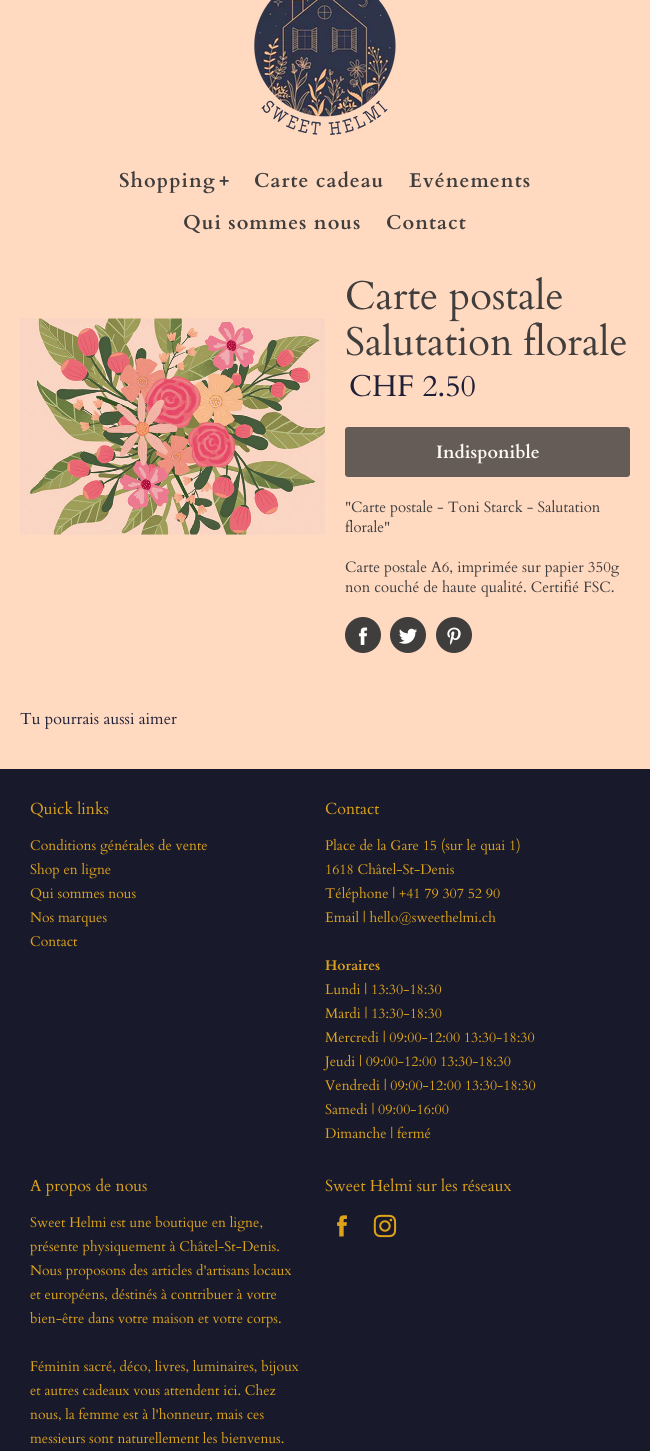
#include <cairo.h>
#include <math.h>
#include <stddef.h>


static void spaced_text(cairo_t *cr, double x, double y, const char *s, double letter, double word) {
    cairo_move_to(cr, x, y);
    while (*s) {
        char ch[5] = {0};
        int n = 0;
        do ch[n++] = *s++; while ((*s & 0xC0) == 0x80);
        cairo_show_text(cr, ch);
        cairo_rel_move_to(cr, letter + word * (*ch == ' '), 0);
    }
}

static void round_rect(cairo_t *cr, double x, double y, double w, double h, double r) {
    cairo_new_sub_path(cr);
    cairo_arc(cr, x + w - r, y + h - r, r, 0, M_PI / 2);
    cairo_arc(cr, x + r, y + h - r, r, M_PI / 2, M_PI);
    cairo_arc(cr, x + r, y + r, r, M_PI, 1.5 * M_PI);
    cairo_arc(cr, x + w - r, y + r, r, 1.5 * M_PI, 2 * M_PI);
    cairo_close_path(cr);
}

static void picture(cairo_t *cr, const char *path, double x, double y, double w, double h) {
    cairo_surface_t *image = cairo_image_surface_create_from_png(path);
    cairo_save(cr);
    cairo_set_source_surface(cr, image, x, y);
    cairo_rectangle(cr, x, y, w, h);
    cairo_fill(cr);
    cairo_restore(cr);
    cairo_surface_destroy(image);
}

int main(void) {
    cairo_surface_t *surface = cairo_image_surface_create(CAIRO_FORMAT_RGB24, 650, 1451);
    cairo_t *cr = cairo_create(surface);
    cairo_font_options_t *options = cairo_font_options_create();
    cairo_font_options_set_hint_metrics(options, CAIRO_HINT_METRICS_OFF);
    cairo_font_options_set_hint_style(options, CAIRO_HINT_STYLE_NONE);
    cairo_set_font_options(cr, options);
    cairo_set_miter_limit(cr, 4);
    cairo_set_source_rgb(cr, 1, 0.855, 0.757);
    cairo_paint(cr);
    picture(cr, "img1.png", 254, 0, 142, 135);
    cairo_select_font_face(cr, "Cardo", CAIRO_FONT_SLANT_NORMAL, CAIRO_FONT_WEIGHT_BOLD);
    cairo_set_font_size(cr, 20);
    cairo_set_source_rgb(cr, 0.251, 0.239, 0.239);
    spaced_text(cr, 119, 187, "Shopping", 1, 0);
    spaced_text(cr, 219, 187, "+", 1, 0);
    spaced_text(cr, 254, 187, "Carte cadeau", 1, 0);
    spaced_text(cr, 409, 187, "Evénements", 1, 0);
    spaced_text(cr, 183, 229, "Qui sommes nous", 1, 0);
    spaced_text(cr, 386, 229, "Contact", 1, 0);
    picture(cr, "img2.png", 20, 318, 305, 217);
    cairo_select_font_face(cr, "Cardo", CAIRO_FONT_SLANT_NORMAL, CAIRO_FONT_WEIGHT_NORMAL);
    cairo_set_font_size(cr, 40);
    cairo_move_to(cr, 345, 309);
    cairo_show_text(cr, "Carte postale");
    cairo_move_to(cr, 345, 355);
    cairo_show_text(cr, "Salutation florale");
    cairo_set_font_size(cr, 30);
    cairo_set_source_rgb(cr, 0.122, 0.122, 0.22);
    cairo_move_to(cr, 349, 396);
    cairo_show_text(cr, "CHF 2.50");
    cairo_set_source_rgb(cr, 0.4, 0.361, 0.341);
    round_rect(cr, 345, 427, 285, 50, 3);
    cairo_fill(cr);
    cairo_select_font_face(cr, "Cardo", CAIRO_FONT_SLANT_NORMAL, CAIRO_FONT_WEIGHT_BOLD);
    cairo_set_font_size(cr, 18);
    cairo_set_source_rgb(cr, 1, 0.973, 0.953);
    cairo_move_to(cr, 436, 458);
    cairo_show_text(cr, "Indisponible");
    cairo_select_font_face(cr, "Cardo", CAIRO_FONT_SLANT_NORMAL, CAIRO_FONT_WEIGHT_NORMAL);
    cairo_set_font_size(cr, 15);
    cairo_set_source_rgb(cr, 0.251, 0.239, 0.239);
    cairo_move_to(cr, 345, 512);
    cairo_show_text(cr, "\"Carte postale - Toni Starck - Salutation");
    cairo_move_to(cr, 345, 532);
    cairo_show_text(cr, "florale\"");
    cairo_move_to(cr, 345, 572);
    cairo_show_text(cr, "Carte postale A6, imprimée sur papier 350g");
    cairo_move_to(cr, 345, 592);
    cairo_show_text(cr, "non couché de haute qualité. Certifié FSC.");
    cairo_new_path(cr);
    cairo_arc(cr, 363, 635, 18, 0, 2 * M_PI);
    cairo_fill(cr);
    picture(cr, "img3.png", 358, 627, 10, 18);
    cairo_arc(cr, 408, 635, 18, 0, 2 * M_PI);
    cairo_fill(cr);
    picture(cr, "img4.png", 399, 628, 19, 16);
    cairo_arc(cr, 454, 635, 18, 0, 2 * M_PI);
    cairo_fill(cr);
    picture(cr, "img5.png", 447, 627, 14, 18);
    cairo_set_font_size(cr, 16);
    cairo_set_source_rgb(cr, 0.122, 0.122, 0.22);
    cairo_move_to(cr, 20, 724);
    cairo_show_text(cr, "Tu pourrais aussi aimer");
    cairo_set_source_rgb(cr, 0.094, 0.098, 0.169);
    cairo_rectangle(cr, 0, 769, 650, 682);
    cairo_fill(cr);
    cairo_set_source_rgb(cr, 0.867, 0.639, 0.106);
    cairo_move_to(cr, 30, 814);
    cairo_show_text(cr, "Quick links");
    cairo_set_font_size(cr, 14);
    cairo_move_to(cr, 30, 850);
    cairo_show_text(cr, "Conditions générales de vente");
    cairo_move_to(cr, 30, 874);
    cairo_show_text(cr, "Shop en ligne");
    cairo_move_to(cr, 30, 898);
    cairo_show_text(cr, "Qui sommes nous");
    cairo_move_to(cr, 30, 922);
    cairo_show_text(cr, "Nos marques");
    cairo_move_to(cr, 30, 946);
    cairo_show_text(cr, "Contact");
    cairo_set_font_size(cr, 16);
    cairo_move_to(cr, 325, 814);
    cairo_show_text(cr, "Contact");
    cairo_set_font_size(cr, 14);
    cairo_move_to(cr, 325, 850);
    cairo_show_text(cr, "Place de la Gare 15 (sur le quai 1)");
    cairo_move_to(cr, 325, 874);
    cairo_show_text(cr, "1618 Châtel-St-Denis");
    cairo_move_to(cr, 325, 898);
    cairo_show_text(cr, "Téléphone | +41 79 307 52 90");
    cairo_move_to(cr, 325, 922);
    cairo_show_text(cr, "Email | hello@sweethelmi.ch");
    cairo_select_font_face(cr, "Cardo", CAIRO_FONT_SLANT_NORMAL, CAIRO_FONT_WEIGHT_BOLD);
    cairo_move_to(cr, 325, 970);
    cairo_show_text(cr, "Horaires");
    cairo_select_font_face(cr, "Cardo", CAIRO_FONT_SLANT_NORMAL, CAIRO_FONT_WEIGHT_NORMAL);
    cairo_move_to(cr, 325, 994);
    cairo_show_text(cr, "Lundi | 13:30-18:30");
    cairo_move_to(cr, 325, 1018);
    cairo_show_text(cr, "Mardi | 13:30-18:30");
    cairo_move_to(cr, 325, 1042);
    cairo_show_text(cr, "Mercredi | 09:00-12:00 13:30-18:30");
    cairo_move_to(cr, 325, 1066);
    cairo_show_text(cr, "Jeudi | 09:00-12:00 13:30-18:30");
    cairo_move_to(cr, 325, 1090);
    cairo_show_text(cr, "Vendredi | 09:00-12:00 13:30-18:30");
    cairo_move_to(cr, 325, 1114);
    cairo_show_text(cr, "Samedi | 09:00-16:00");
    cairo_move_to(cr, 325, 1138);
    cairo_show_text(cr, "Dimanche | fermé");
    cairo_set_font_size(cr, 16);
    cairo_move_to(cr, 30, 1191);
    cairo_show_text(cr, "A propos de nous");
    cairo_set_font_size(cr, 14);
    cairo_move_to(cr, 30, 1227);
    cairo_show_text(cr, "Sweet Helmi est une boutique en ligne,");
    cairo_move_to(cr, 30, 1251);
    cairo_show_text(cr, "présente physiquement à Châtel-St-Denis.");
    cairo_move_to(cr, 30, 1275);
    cairo_show_text(cr, "Nous proposons des articles d'artisans locaux");
    cairo_move_to(cr, 30, 1299);
    cairo_show_text(cr, "et européens, déstinés à contribuer à votre");
    cairo_move_to(cr, 30, 1323);
    cairo_show_text(cr, "bien-être dans votre maison et votre corps.");
    cairo_move_to(cr, 30, 1371);
    cairo_show_text(cr, "Féminin sacré, déco, livres, luminaires, bijoux");
    cairo_move_to(cr, 30, 1395);
    cairo_show_text(cr, "et autres cadeaux vous attendent ici. Chez");
    cairo_move_to(cr, 30, 1419);
    cairo_show_text(cr, "nous, la femme est à l'honneur, mais ces");
    cairo_move_to(cr, 30, 1443);
    cairo_show_text(cr, "messieurs sont naturellement les bienvenus.");
    cairo_set_font_size(cr, 16);
    cairo_move_to(cr, 325, 1191);
    cairo_show_text(cr, "Sweet Helmi sur les réseaux");
    picture(cr, "img6.png", 337, 1215, 10, 22);
    picture(cr, "img7.png", 373, 1214, 24, 24);
    cairo_surface_write_to_png(surface, "page.png");
    cairo_font_options_destroy(options);
    cairo_destroy(cr);
    cairo_surface_destroy(surface);
    return 0;
}
